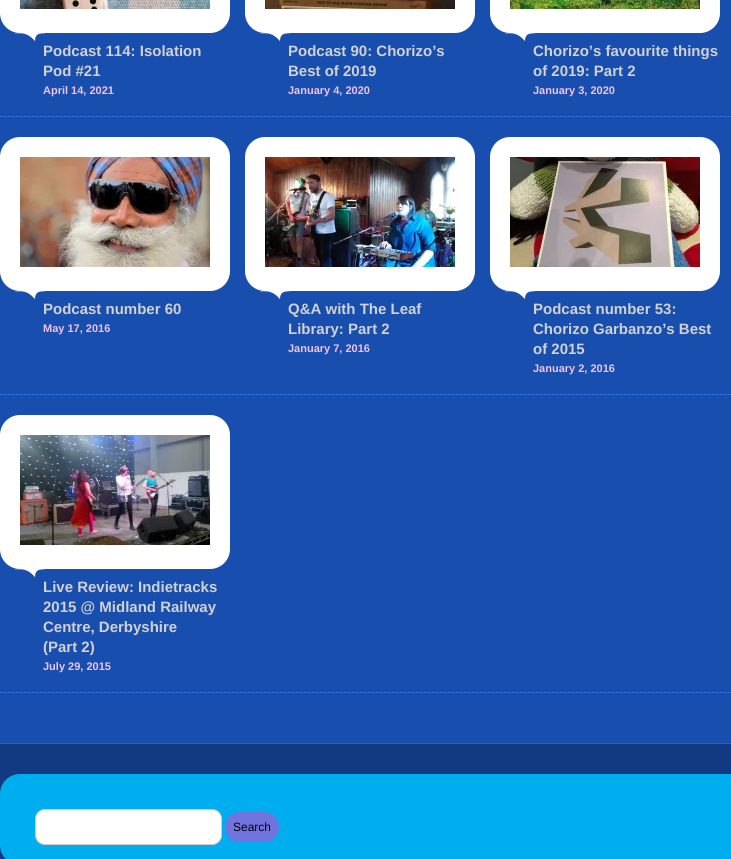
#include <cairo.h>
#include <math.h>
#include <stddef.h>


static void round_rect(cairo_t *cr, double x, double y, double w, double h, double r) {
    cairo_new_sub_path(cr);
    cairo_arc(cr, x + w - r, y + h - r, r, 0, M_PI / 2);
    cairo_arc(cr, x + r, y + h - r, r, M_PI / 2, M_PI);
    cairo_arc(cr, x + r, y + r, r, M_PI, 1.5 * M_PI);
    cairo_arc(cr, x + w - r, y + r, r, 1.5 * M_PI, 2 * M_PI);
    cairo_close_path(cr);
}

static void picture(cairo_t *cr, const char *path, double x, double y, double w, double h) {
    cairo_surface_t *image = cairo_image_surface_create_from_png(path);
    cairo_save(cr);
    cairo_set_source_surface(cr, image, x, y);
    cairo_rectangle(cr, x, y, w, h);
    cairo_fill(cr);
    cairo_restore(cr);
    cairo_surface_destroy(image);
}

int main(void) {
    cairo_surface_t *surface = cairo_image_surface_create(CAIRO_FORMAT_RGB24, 731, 859);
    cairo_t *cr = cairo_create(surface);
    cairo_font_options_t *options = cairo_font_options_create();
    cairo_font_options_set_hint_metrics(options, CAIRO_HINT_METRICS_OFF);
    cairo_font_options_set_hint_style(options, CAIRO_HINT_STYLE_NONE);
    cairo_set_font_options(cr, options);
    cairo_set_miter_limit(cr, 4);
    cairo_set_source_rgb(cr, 0.094, 0.306, 0.678);
    cairo_paint(cr);
    cairo_new_path(cr);
    cairo_move_to(cr, 0, 116.5);
    cairo_line_to(cr, 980, 116.5);
    cairo_set_source_rgb(cr, 0.259, 0.502, 0.918);
    cairo_set_line_width(cr, 1);
    cairo_set_dash(cr, (double[]){1, 1}, 2, 0);
    cairo_stroke(cr);
    cairo_set_source_rgb(cr, 1, 1, 1);
    round_rect(cr, 0, -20, 230, 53, 20);
    cairo_fill(cr);
    picture(cr, "img1.png", 20, 0, 190, 9);
    picture(cr, "img2.png", 15, 33, 30, 8);
    cairo_select_font_face(cr, "Liberation Sans", CAIRO_FONT_SLANT_NORMAL, CAIRO_FONT_WEIGHT_BOLD);
    cairo_set_font_size(cr, 15);
    cairo_set_source_rgb(cr, 0.82, 0.82, 0.82);
    cairo_move_to(cr, 43, 56);
    cairo_show_text(cr, "Podcast 114: Isolation");
    cairo_move_to(cr, 43, 76);
    cairo_show_text(cr, "Pod #21");
    cairo_set_font_size(cr, 11);
    cairo_set_source_rgb(cr, 0.953, 0.761, 0.902);
    cairo_move_to(cr, 43, 94);
    cairo_show_text(cr, "April 14, 2021");
    cairo_set_source_rgb(cr, 1, 1, 1);
    round_rect(cr, 245, -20, 230, 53, 20);
    cairo_fill(cr);
    picture(cr, "img3.png", 265, 0, 190, 9);
    picture(cr, "img2.png", 260, 33, 30, 8);
    cairo_set_font_size(cr, 15);
    cairo_set_source_rgb(cr, 0.82, 0.82, 0.82);
    cairo_move_to(cr, 288, 56);
    cairo_show_text(cr, "Podcast 90: Chorizo’s");
    cairo_move_to(cr, 288, 76);
    cairo_show_text(cr, "Best of 2019");
    cairo_set_font_size(cr, 11);
    cairo_set_source_rgb(cr, 0.953, 0.761, 0.902);
    cairo_move_to(cr, 288, 94);
    cairo_show_text(cr, "January 4, 2020");
    cairo_set_source_rgb(cr, 1, 1, 1);
    round_rect(cr, 490, -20, 230, 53, 20);
    cairo_fill(cr);
    picture(cr, "img4.png", 510, 0, 190, 9);
    picture(cr, "img2.png", 505, 33, 30, 8);
    cairo_set_font_size(cr, 15);
    cairo_set_source_rgb(cr, 0.82, 0.82, 0.82);
    cairo_move_to(cr, 533, 56);
    cairo_show_text(cr, "Chorizo’s favourite things");
    cairo_move_to(cr, 533, 76);
    cairo_show_text(cr, "of 2019: Part 2");
    cairo_set_font_size(cr, 11);
    cairo_set_source_rgb(cr, 0.953, 0.761, 0.902);
    cairo_move_to(cr, 533, 94);
    cairo_show_text(cr, "January 3, 2020");
    cairo_new_path(cr);
    cairo_move_to(cr, 0, 394.5);
    cairo_line_to(cr, 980, 394.5);
    cairo_set_source_rgb(cr, 0.259, 0.502, 0.918);
    cairo_stroke(cr);
    cairo_set_source_rgb(cr, 1, 1, 1);
    round_rect(cr, 0, 137, 230, 154, 20);
    cairo_fill(cr);
    picture(cr, "img5.png", 20, 157, 190, 110);
    picture(cr, "img2.png", 15, 291, 30, 8);
    cairo_set_font_size(cr, 15);
    cairo_set_source_rgb(cr, 0.82, 0.82, 0.82);
    cairo_move_to(cr, 43, 314);
    cairo_show_text(cr, "Podcast number 60");
    cairo_set_font_size(cr, 11);
    cairo_set_source_rgb(cr, 0.953, 0.761, 0.902);
    cairo_move_to(cr, 43, 332);
    cairo_show_text(cr, "May 17, 2016");
    cairo_set_source_rgb(cr, 1, 1, 1);
    round_rect(cr, 245, 137, 230, 154, 20);
    cairo_fill(cr);
    picture(cr, "img6.png", 265, 157, 190, 110);
    picture(cr, "img2.png", 260, 291, 30, 8);
    cairo_set_font_size(cr, 15);
    cairo_set_source_rgb(cr, 0.82, 0.82, 0.82);
    cairo_move_to(cr, 288, 314);
    cairo_show_text(cr, "Q&A with The Leaf");
    cairo_move_to(cr, 288, 334);
    cairo_show_text(cr, "Library: Part 2");
    cairo_set_font_size(cr, 11);
    cairo_set_source_rgb(cr, 0.953, 0.761, 0.902);
    cairo_move_to(cr, 288, 352);
    cairo_show_text(cr, "January 7, 2016");
    cairo_set_source_rgb(cr, 1, 1, 1);
    round_rect(cr, 490, 137, 230, 154, 20);
    cairo_fill(cr);
    picture(cr, "img7.png", 510, 157, 190, 110);
    picture(cr, "img2.png", 505, 291, 30, 8);
    cairo_set_font_size(cr, 15);
    cairo_set_source_rgb(cr, 0.82, 0.82, 0.82);
    cairo_move_to(cr, 533, 314);
    cairo_show_text(cr, "Podcast number 53:");
    cairo_move_to(cr, 533, 334);
    cairo_show_text(cr, "Chorizo Garbanzo’s Best");
    cairo_move_to(cr, 533, 354);
    cairo_show_text(cr, "of 2015");
    cairo_set_font_size(cr, 11);
    cairo_set_source_rgb(cr, 0.953, 0.761, 0.902);
    cairo_move_to(cr, 533, 372);
    cairo_show_text(cr, "January 2, 2016");
    cairo_new_path(cr);
    cairo_move_to(cr, 0, 692.5);
    cairo_line_to(cr, 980, 692.5);
    cairo_set_source_rgb(cr, 0.259, 0.502, 0.918);
    cairo_stroke(cr);
    cairo_set_source_rgb(cr, 1, 1, 1);
    round_rect(cr, 0, 415, 230, 154, 20);
    cairo_fill(cr);
    picture(cr, "img8.png", 20, 435, 190, 110);
    picture(cr, "img2.png", 15, 569, 30, 8);
    cairo_set_font_size(cr, 15);
    cairo_set_source_rgb(cr, 0.82, 0.82, 0.82);
    cairo_move_to(cr, 43, 592);
    cairo_show_text(cr, "Live Review: Indietracks");
    cairo_move_to(cr, 43, 612);
    cairo_show_text(cr, "2015 @ Midland Railway");
    cairo_move_to(cr, 43, 632);
    cairo_show_text(cr, "Centre, Derbyshire");
    cairo_move_to(cr, 43, 652);
    cairo_show_text(cr, "(Part 2)");
    cairo_set_font_size(cr, 11);
    cairo_set_source_rgb(cr, 0.953, 0.761, 0.902);
    cairo_move_to(cr, 43, 670);
    cairo_show_text(cr, "July 29, 2015");
    cairo_set_source_rgb(cr, 0.067, 0.227, 0.51);
    cairo_rectangle(cr, 0, 744, 731, 115);
    cairo_fill(cr);
    cairo_set_source_rgb(cr, 0.114, 0.388, 0.859);
    cairo_rectangle(cr, 0, 743, 731, 1);
    cairo_fill(cr);
    cairo_set_source_rgb(cr, 0, 0.678, 0.937);
    round_rect(cr, 0, 774, 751, 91, 20);
    cairo_fill(cr);
    cairo_set_source_rgb(cr, 1, 1, 1);
    round_rect(cr, 35.5, 809.5, 186, 35, 9.5);
    cairo_fill_preserve(cr);
    cairo_set_source_rgb(cr, 0.8, 0.8, 0.8);
    cairo_set_dash(cr, NULL, 0, 0);
    cairo_stroke(cr);
    cairo_set_source_rgb(cr, 0.447, 0.455, 0.871);
    round_rect(cr, 225, 812, 54, 30, 15);
    cairo_fill(cr);
    cairo_select_font_face(cr, "Liberation Sans", CAIRO_FONT_SLANT_NORMAL, CAIRO_FONT_WEIGHT_NORMAL);
    cairo_set_font_size(cr, 12);
    cairo_set_source_rgb(cr, 0, 0, 0);
    cairo_move_to(cr, 233, 831);
    cairo_show_text(cr, "Search");
    cairo_surface_write_to_png(surface, "page.png");
    cairo_font_options_destroy(options);
    cairo_destroy(cr);
    cairo_surface_destroy(surface);
    return 0;
}
